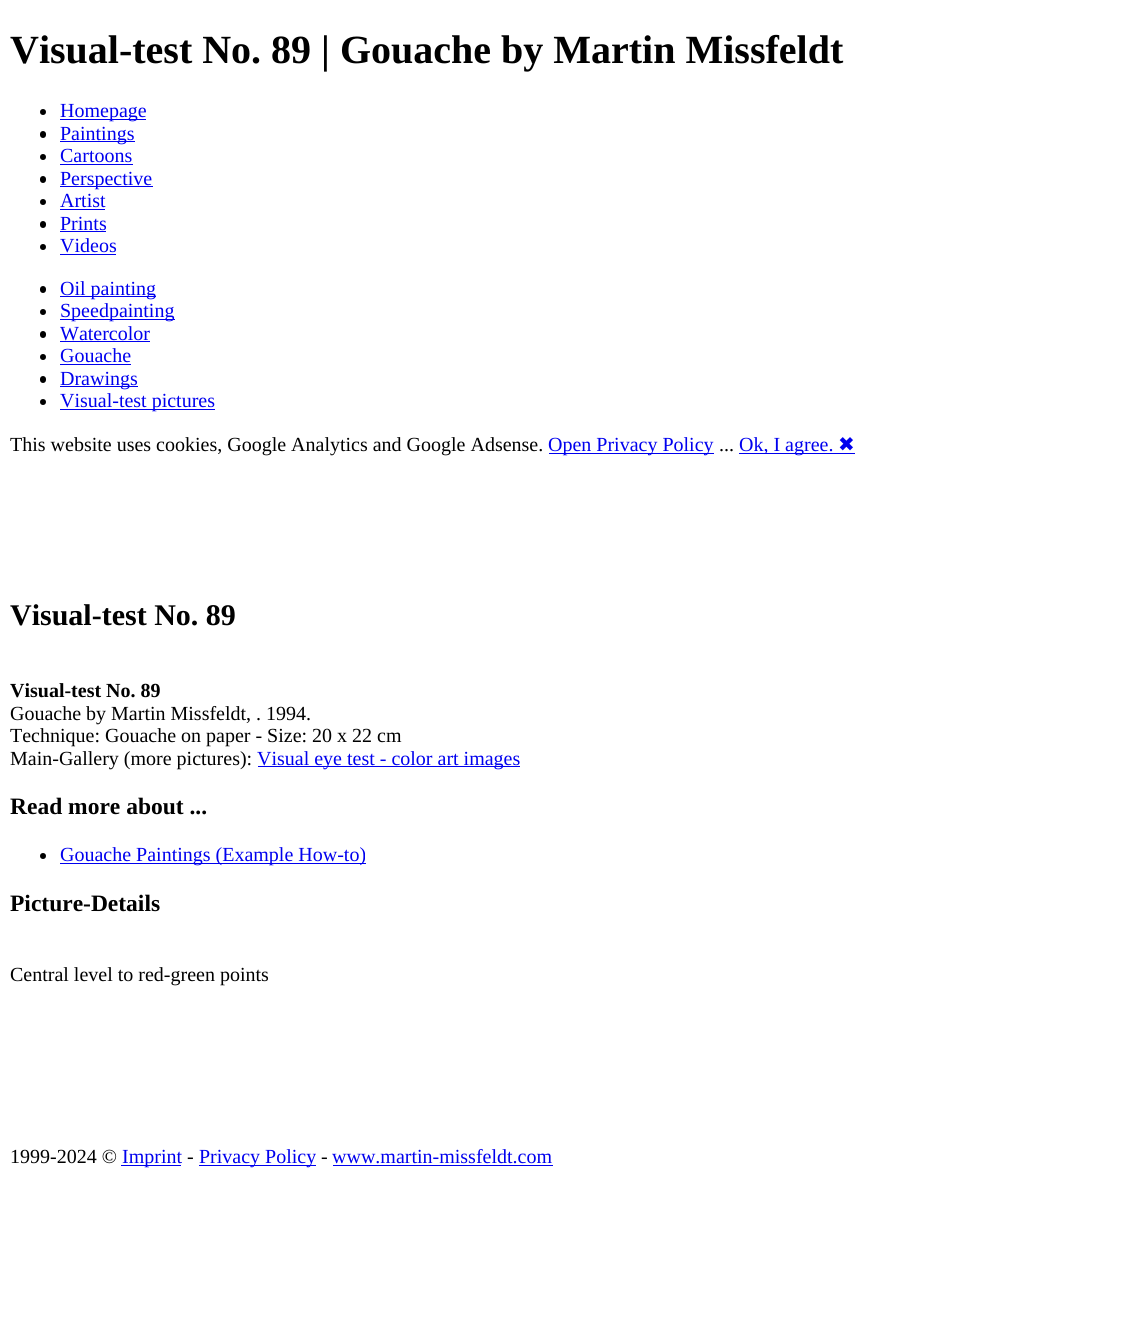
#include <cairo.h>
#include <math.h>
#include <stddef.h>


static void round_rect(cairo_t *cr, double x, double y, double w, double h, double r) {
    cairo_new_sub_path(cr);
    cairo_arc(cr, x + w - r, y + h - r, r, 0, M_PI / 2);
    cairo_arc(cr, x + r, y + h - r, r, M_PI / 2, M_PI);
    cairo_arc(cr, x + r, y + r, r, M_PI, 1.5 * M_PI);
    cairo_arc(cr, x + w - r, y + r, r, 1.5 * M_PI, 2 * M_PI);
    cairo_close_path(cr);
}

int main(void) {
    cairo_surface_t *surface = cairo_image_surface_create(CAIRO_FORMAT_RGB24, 1144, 1323);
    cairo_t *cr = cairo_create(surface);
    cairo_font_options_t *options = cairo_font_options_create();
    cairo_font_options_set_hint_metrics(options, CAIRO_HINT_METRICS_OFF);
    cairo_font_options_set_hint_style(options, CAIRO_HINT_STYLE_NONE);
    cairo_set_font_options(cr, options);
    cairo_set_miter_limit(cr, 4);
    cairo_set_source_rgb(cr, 1, 1, 1);
    cairo_paint(cr);
    cairo_select_font_face(cr, "Liberation Serif", CAIRO_FONT_SLANT_NORMAL, CAIRO_FONT_WEIGHT_BOLD);
    cairo_set_font_size(cr, 40);
    cairo_set_source_rgb(cr, 0, 0, 0);
    cairo_move_to(cr, 10, 63);
    cairo_show_text(cr, "Visual-test No. 89 | Gouache by Martin Missfeldt");
    cairo_new_path(cr);
    cairo_arc(cr, 43, 112, 3, 0, 2 * M_PI);
    cairo_fill(cr);
    cairo_set_source_rgb(cr, 0, 0, 0.933);
    cairo_rectangle(cr, 60, 119, 86, 1);
    cairo_fill(cr);
    cairo_select_font_face(cr, "Liberation Serif", CAIRO_FONT_SLANT_NORMAL, CAIRO_FONT_WEIGHT_NORMAL);
    cairo_set_font_size(cr, 20);
    cairo_move_to(cr, 60, 117);
    cairo_show_text(cr, "Homepage");
    cairo_set_source_rgb(cr, 0, 0, 0);
    round_rect(cr, 40, 131, 6, 7, 3);
    cairo_fill(cr);
    cairo_set_source_rgb(cr, 0, 0, 0.933);
    cairo_rectangle(cr, 60, 141, 75, 1);
    cairo_fill(cr);
    cairo_move_to(cr, 60, 140);
    cairo_show_text(cr, "Paintings");
    cairo_set_source_rgb(cr, 0, 0, 0);
    cairo_new_path(cr);
    cairo_arc(cr, 43, 157, 3, 0, 2 * M_PI);
    cairo_fill(cr);
    cairo_set_source_rgb(cr, 0, 0, 0.933);
    cairo_move_to(cr, 60, 162);
    cairo_show_text(cr, "Cartoons");
    cairo_rectangle(cr, 60, 164, 73, 1);
    cairo_fill(cr);
    cairo_set_source_rgb(cr, 0, 0, 0);
    round_rect(cr, 40, 176, 6, 7, 3);
    cairo_fill(cr);
    cairo_set_source_rgb(cr, 0, 0, 0.933);
    cairo_rectangle(cr, 60, 186, 93, 1);
    cairo_fill(cr);
    cairo_move_to(cr, 60, 185);
    cairo_show_text(cr, "Perspective");
    cairo_set_source_rgb(cr, 0, 0, 0);
    cairo_new_path(cr);
    cairo_arc(cr, 43, 202, 3, 0, 2 * M_PI);
    cairo_fill(cr);
    cairo_set_source_rgb(cr, 0, 0, 0.933);
    cairo_move_to(cr, 60, 207);
    cairo_show_text(cr, "Artist");
    cairo_rectangle(cr, 60, 209, 45, 1);
    cairo_fill(cr);
    cairo_set_source_rgb(cr, 0, 0, 0);
    round_rect(cr, 40, 221, 6, 7, 3);
    cairo_fill(cr);
    cairo_set_source_rgb(cr, 0, 0, 0.933);
    cairo_move_to(cr, 60, 230);
    cairo_show_text(cr, "Prints");
    cairo_rectangle(cr, 60, 231, 46, 1);
    cairo_fill(cr);
    cairo_set_source_rgb(cr, 0, 0, 0);
    cairo_arc(cr, 43, 247, 3, 0, 2 * M_PI);
    cairo_fill(cr);
    cairo_set_source_rgb(cr, 0, 0, 0.933);
    cairo_move_to(cr, 60, 252);
    cairo_show_text(cr, "Videos");
    cairo_rectangle(cr, 60, 254, 56, 1);
    cairo_fill(cr);
    cairo_set_source_rgb(cr, 0, 0, 0);
    round_rect(cr, 40, 286, 6, 7, 3);
    cairo_fill(cr);
    cairo_set_source_rgb(cr, 0, 0, 0.933);
    cairo_rectangle(cr, 60, 296, 96, 1);
    cairo_fill(cr);
    cairo_move_to(cr, 60, 295);
    cairo_show_text(cr, "Oil painting");
    cairo_set_source_rgb(cr, 0, 0, 0);
    cairo_new_path(cr);
    cairo_arc(cr, 43, 312, 3, 0, 2 * M_PI);
    cairo_fill(cr);
    cairo_set_source_rgb(cr, 0, 0, 0.933);
    cairo_rectangle(cr, 60, 319, 115, 1);
    cairo_fill(cr);
    cairo_move_to(cr, 60, 317);
    cairo_show_text(cr, "Speedpainting");
    cairo_set_source_rgb(cr, 0, 0, 0);
    round_rect(cr, 40, 331, 6, 7, 3);
    cairo_fill(cr);
    cairo_set_source_rgb(cr, 0, 0, 0.933);
    cairo_move_to(cr, 60, 340);
    cairo_show_text(cr, "Watercolor");
    cairo_rectangle(cr, 60, 341, 90, 1);
    cairo_fill(cr);
    cairo_set_source_rgb(cr, 0, 0, 0);
    cairo_arc(cr, 43, 357, 3, 0, 2 * M_PI);
    cairo_fill(cr);
    cairo_set_source_rgb(cr, 0, 0, 0.933);
    cairo_move_to(cr, 60, 362);
    cairo_show_text(cr, "Gouache");
    cairo_rectangle(cr, 60, 364, 71, 1);
    cairo_fill(cr);
    cairo_set_source_rgb(cr, 0, 0, 0);
    round_rect(cr, 40, 376, 6, 7, 3);
    cairo_fill(cr);
    cairo_set_source_rgb(cr, 0, 0, 0.933);
    cairo_rectangle(cr, 60, 386, 78, 1);
    cairo_fill(cr);
    cairo_move_to(cr, 60, 385);
    cairo_show_text(cr, "Drawings");
    cairo_set_source_rgb(cr, 0, 0, 0);
    cairo_new_path(cr);
    cairo_arc(cr, 43, 402, 3, 0, 2 * M_PI);
    cairo_fill(cr);
    cairo_set_source_rgb(cr, 0, 0, 0.933);
    cairo_rectangle(cr, 60, 409, 155, 1);
    cairo_fill(cr);
    cairo_move_to(cr, 60, 407);
    cairo_show_text(cr, "Visual-test pictures");
    cairo_set_source_rgb(cr, 0, 0, 0);
    cairo_move_to(cr, 10, 451);
    cairo_show_text(cr, "This website uses cookies, Google Analytics and Google Adsense.");
    cairo_set_source_rgb(cr, 0, 0, 0.933);
    cairo_rectangle(cr, 549, 453, 165, 1);
    cairo_fill(cr);
    cairo_move_to(cr, 548, 451);
    cairo_show_text(cr, "Open Privacy Policy");
    cairo_set_source_rgb(cr, 0, 0, 0);
    cairo_move_to(cr, 719, 451);
    cairo_show_text(cr, "...");
    cairo_set_source_rgb(cr, 0, 0, 0.933);
    cairo_rectangle(cr, 739, 453, 116, 1);
    cairo_fill(cr);
    cairo_move_to(cr, 739, 451);
    cairo_show_text(cr, "Ok, I agree.");
    cairo_select_font_face(cr, "DejaVu Sans", CAIRO_FONT_SLANT_NORMAL, CAIRO_FONT_WEIGHT_NORMAL);
    cairo_move_to(cr, 838, 451);
    cairo_show_text(cr, "✖");
    cairo_select_font_face(cr, "Liberation Serif", CAIRO_FONT_SLANT_NORMAL, CAIRO_FONT_WEIGHT_BOLD);
    cairo_set_font_size(cr, 30);
    cairo_set_source_rgb(cr, 0, 0, 0);
    cairo_move_to(cr, 10, 625);
    cairo_show_text(cr, "Visual-test No. 89");
    cairo_set_font_size(cr, 20);
    cairo_move_to(cr, 10, 697);
    cairo_show_text(cr, "Visual-test No. 89");
    cairo_select_font_face(cr, "Liberation Serif", CAIRO_FONT_SLANT_NORMAL, CAIRO_FONT_WEIGHT_NORMAL);
    cairo_move_to(cr, 10, 720);
    cairo_show_text(cr, "Gouache by Martin Missfeldt, . 1994.");
    cairo_move_to(cr, 10, 742);
    cairo_show_text(cr, "Technique: Gouache on paper - Size: 20 x 22 cm");
    cairo_move_to(cr, 10, 765);
    cairo_show_text(cr, "Main-Gallery (more pictures):");
    cairo_set_source_rgb(cr, 0, 0, 0.933);
    cairo_rectangle(cr, 258, 766, 262, 1);
    cairo_fill(cr);
    cairo_move_to(cr, 257, 765);
    cairo_show_text(cr, "Visual eye test - color art images");
    cairo_select_font_face(cr, "Liberation Serif", CAIRO_FONT_SLANT_NORMAL, CAIRO_FONT_WEIGHT_BOLD);
    cairo_set_font_size(cr, 23.5);
    cairo_set_source_rgb(cr, 0, 0, 0);
    cairo_move_to(cr, 10, 814);
    cairo_show_text(cr, "Read more about ...");
    cairo_new_path(cr);
    cairo_arc(cr, 43, 856, 3, 0, 2 * M_PI);
    cairo_fill(cr);
    cairo_set_source_rgb(cr, 0, 0, 0.933);
    cairo_rectangle(cr, 60, 863, 306, 1);
    cairo_fill(cr);
    cairo_select_font_face(cr, "Liberation Serif", CAIRO_FONT_SLANT_NORMAL, CAIRO_FONT_WEIGHT_NORMAL);
    cairo_set_font_size(cr, 20);
    cairo_move_to(cr, 60, 861);
    cairo_show_text(cr, "Gouache Paintings (Example How-to)");
    cairo_select_font_face(cr, "Liberation Serif", CAIRO_FONT_SLANT_NORMAL, CAIRO_FONT_WEIGHT_BOLD);
    cairo_set_font_size(cr, 23.5);
    cairo_set_source_rgb(cr, 0, 0, 0);
    cairo_move_to(cr, 10, 911);
    cairo_show_text(cr, "Picture-Details");
    cairo_select_font_face(cr, "Liberation Serif", CAIRO_FONT_SLANT_NORMAL, CAIRO_FONT_WEIGHT_NORMAL);
    cairo_set_font_size(cr, 20);
    cairo_move_to(cr, 10, 981);
    cairo_show_text(cr, "Central level to red-green points");
    cairo_move_to(cr, 10, 1163);
    cairo_show_text(cr, "1999-2024 ©");
    cairo_set_source_rgb(cr, 0, 0, 0.933);
    cairo_rectangle(cr, 121, 1165, 60, 1);
    cairo_fill(cr);
    cairo_move_to(cr, 122, 1163);
    cairo_show_text(cr, "Imprint");
    cairo_set_source_rgb(cr, 0, 0, 0);
    cairo_move_to(cr, 187, 1163);
    cairo_show_text(cr, "-");
    cairo_set_source_rgb(cr, 0, 0, 0.933);
    cairo_rectangle(cr, 199, 1165, 117, 1);
    cairo_fill(cr);
    cairo_move_to(cr, 199, 1163);
    cairo_show_text(cr, "Privacy Policy");
    cairo_set_source_rgb(cr, 0, 0, 0);
    cairo_move_to(cr, 321, 1163);
    cairo_show_text(cr, "-");
    cairo_set_source_rgb(cr, 0, 0, 0.933);
    cairo_move_to(cr, 332, 1163);
    cairo_show_text(cr, "www.martin-missfeldt.com");
    cairo_rectangle(cr, 333, 1165, 220, 1);
    cairo_fill(cr);
    cairo_surface_write_to_png(surface, "page.png");
    cairo_font_options_destroy(options);
    cairo_destroy(cr);
    cairo_surface_destroy(surface);
    return 0;
}
